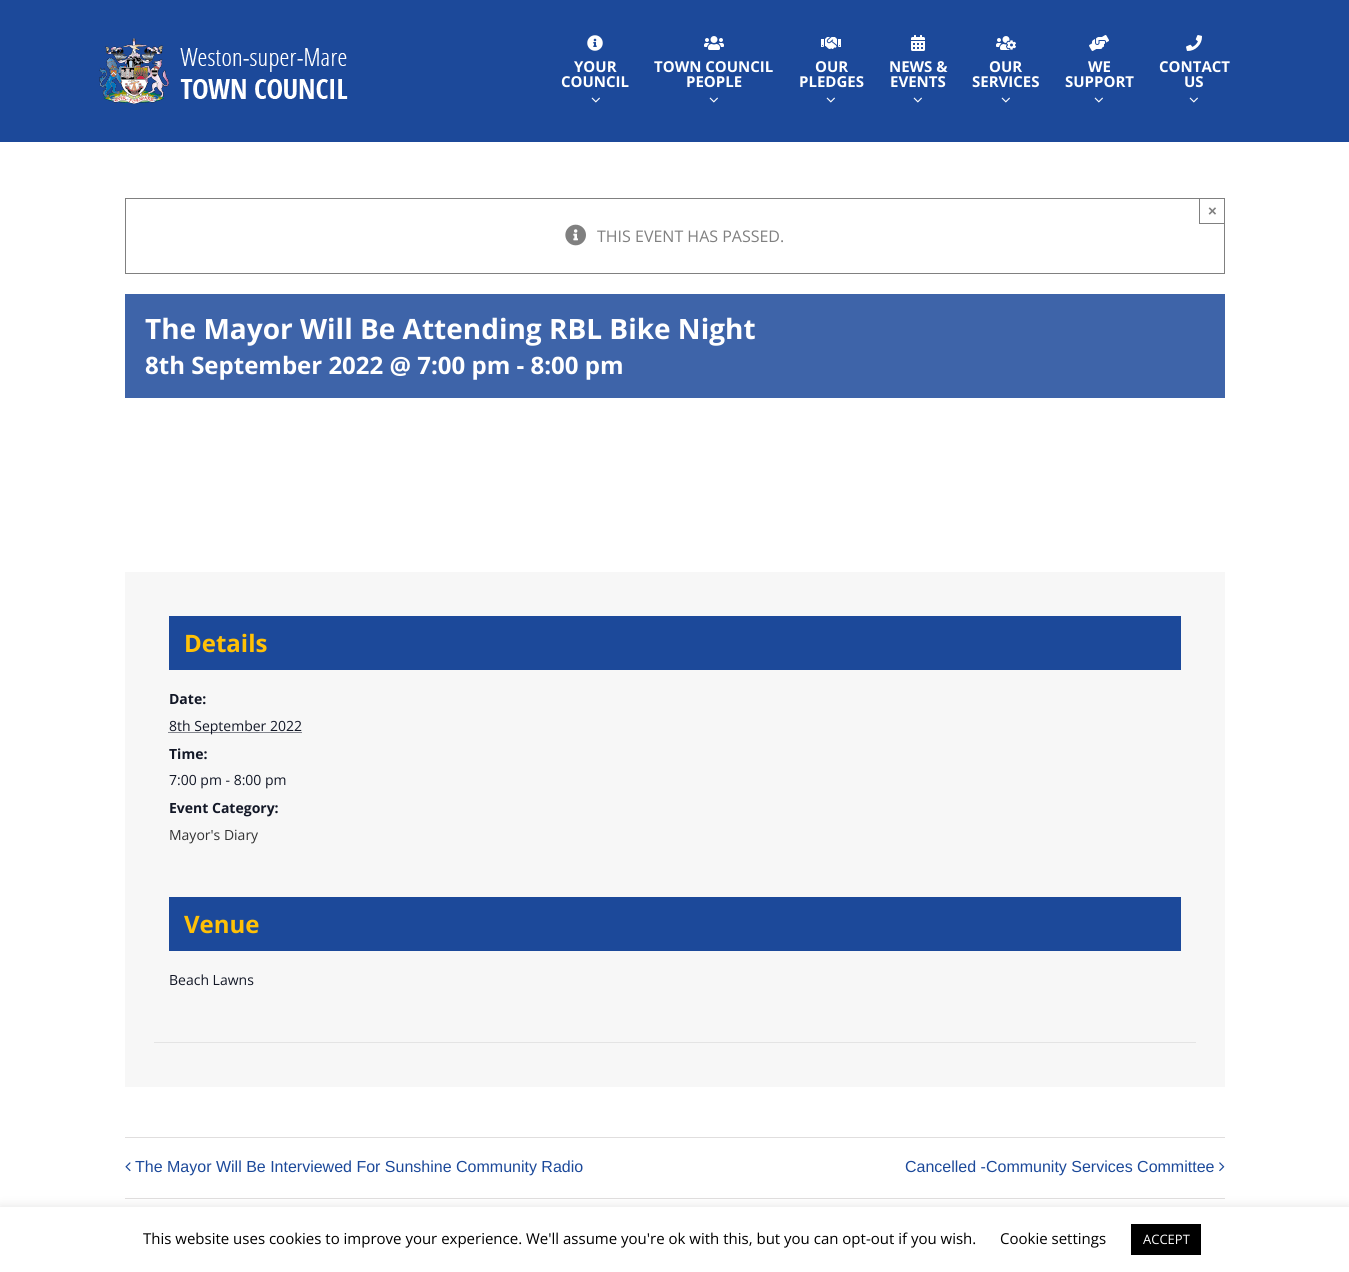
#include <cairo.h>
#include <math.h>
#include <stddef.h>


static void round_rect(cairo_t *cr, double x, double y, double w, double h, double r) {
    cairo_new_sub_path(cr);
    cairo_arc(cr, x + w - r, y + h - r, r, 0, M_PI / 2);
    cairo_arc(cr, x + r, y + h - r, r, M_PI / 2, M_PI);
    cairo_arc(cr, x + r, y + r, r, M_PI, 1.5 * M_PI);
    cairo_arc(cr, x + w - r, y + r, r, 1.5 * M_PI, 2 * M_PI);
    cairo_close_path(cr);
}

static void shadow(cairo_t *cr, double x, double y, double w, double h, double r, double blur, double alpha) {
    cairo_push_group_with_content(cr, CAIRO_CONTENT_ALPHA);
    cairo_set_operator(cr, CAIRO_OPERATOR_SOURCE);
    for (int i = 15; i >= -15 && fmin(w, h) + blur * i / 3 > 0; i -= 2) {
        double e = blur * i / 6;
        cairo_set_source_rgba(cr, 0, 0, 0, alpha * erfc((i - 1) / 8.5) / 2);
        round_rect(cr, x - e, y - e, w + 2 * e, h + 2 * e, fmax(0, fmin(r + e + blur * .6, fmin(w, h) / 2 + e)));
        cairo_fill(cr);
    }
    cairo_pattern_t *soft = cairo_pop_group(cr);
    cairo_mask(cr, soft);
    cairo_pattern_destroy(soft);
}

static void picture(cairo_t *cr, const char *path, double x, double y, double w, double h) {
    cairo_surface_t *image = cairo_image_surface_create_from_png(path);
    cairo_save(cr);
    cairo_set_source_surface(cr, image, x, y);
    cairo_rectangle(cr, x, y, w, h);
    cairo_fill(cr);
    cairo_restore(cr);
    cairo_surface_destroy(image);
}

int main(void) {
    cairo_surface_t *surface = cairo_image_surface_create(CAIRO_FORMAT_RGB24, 1349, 1272);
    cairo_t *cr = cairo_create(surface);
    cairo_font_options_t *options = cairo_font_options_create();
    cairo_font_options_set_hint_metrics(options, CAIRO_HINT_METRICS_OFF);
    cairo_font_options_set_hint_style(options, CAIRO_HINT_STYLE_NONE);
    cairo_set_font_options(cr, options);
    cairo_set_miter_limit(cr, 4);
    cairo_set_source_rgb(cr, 1, 1, 1);
    cairo_paint(cr);
    cairo_set_source_rgb(cr, 0.11, 0.286, 0.604);
    cairo_rectangle(cr, 0, 0, 1349, 142);
    cairo_fill(cr);
    picture(cr, "img1.png", 99, 38, 249, 66);
    picture(cr, "img2.png", 587, 35, 16, 16);
    cairo_select_font_face(cr, "Open Sans", CAIRO_FONT_SLANT_NORMAL, CAIRO_FONT_WEIGHT_BOLD);
    cairo_set_font_size(cr, 15);
    cairo_set_source_rgb(cr, 1, 1, 1);
    cairo_move_to(cr, 574, 72);
    cairo_show_text(cr, "YOUR");
    cairo_move_to(cr, 561, 87);
    cairo_show_text(cr, "COUNCIL");
    picture(cr, "img3.png", 591, 97, 9, 6);
    picture(cr, "img4.png", 704, 36, 20, 14);
    cairo_move_to(cr, 654, 72);
    cairo_show_text(cr, "TOWN COUNCIL");
    cairo_move_to(cr, 686, 87);
    cairo_show_text(cr, "PEOPLE");
    picture(cr, "img3.png", 709, 97, 9, 6);
    picture(cr, "img5.png", 821, 37, 20, 12);
    cairo_move_to(cr, 815, 72);
    cairo_show_text(cr, "OUR");
    cairo_move_to(cr, 799, 87);
    cairo_show_text(cr, "PLEDGES");
    picture(cr, "img3.png", 826, 97, 9, 6);
    picture(cr, "img6.png", 911, 35, 14, 16);
    cairo_move_to(cr, 889, 72);
    cairo_show_text(cr, "NEWS &");
    cairo_move_to(cr, 890, 87);
    cairo_show_text(cr, "EVENTS");
    picture(cr, "img3.png", 913, 97, 9, 6);
    picture(cr, "img7.png", 996, 36, 20, 14);
    cairo_move_to(cr, 989, 72);
    cairo_show_text(cr, "OUR");
    cairo_move_to(cr, 972, 87);
    cairo_show_text(cr, "SERVICES");
    picture(cr, "img3.png", 1001, 97, 9, 6);
    picture(cr, "img8.png", 1089, 35, 20, 16);
    cairo_move_to(cr, 1088, 72);
    cairo_show_text(cr, "WE");
    cairo_move_to(cr, 1065, 87);
    cairo_show_text(cr, "SUPPORT");
    picture(cr, "img3.png", 1094, 97, 9, 6);
    picture(cr, "img9.png", 1186, 35, 16, 16);
    cairo_move_to(cr, 1159, 72);
    cairo_show_text(cr, "CONTACT");
    cairo_move_to(cr, 1184, 87);
    cairo_show_text(cr, "US");
    picture(cr, "img3.png", 1189, 97, 9, 6);
    cairo_rectangle(cr, 125.5, 198.5, 1099, 75);
    cairo_set_source_rgb(cr, 0.502, 0.502, 0.502);
    cairo_set_line_width(cr, 1);
    cairo_stroke(cr);
    cairo_rectangle(cr, 1199, 223, 26, 1);
    cairo_fill(cr);
    cairo_rectangle(cr, 1199, 198, 1, 26);
    cairo_fill(cr);
    cairo_select_font_face(cr, "Liberation Sans", CAIRO_FONT_SLANT_NORMAL, CAIRO_FONT_WEIGHT_BOLD);
    cairo_move_to(cr, 1208, 216);
    cairo_show_text(cr, "×");
    picture(cr, "img10.png", 565, 224, 21, 22);
    cairo_select_font_face(cr, "Open Sans", CAIRO_FONT_SLANT_NORMAL, CAIRO_FONT_WEIGHT_NORMAL);
    cairo_set_font_size(cr, 16);
    cairo_move_to(cr, 597, 242);
    cairo_show_text(cr, "THIS EVENT HAS PASSED.");
    cairo_set_source_rgb(cr, 0.243, 0.392, 0.663);
    cairo_rectangle(cr, 125, 294, 1100, 104);
    cairo_fill(cr);
    cairo_select_font_face(cr, "Open Sans", CAIRO_FONT_SLANT_NORMAL, CAIRO_FONT_WEIGHT_BOLD);
    cairo_set_font_size(cr, 28);
    cairo_set_source_rgb(cr, 1, 1, 1);
    cairo_move_to(cr, 145, 339);
    cairo_show_text(cr, "The Mayor Will Be Attending RBL Bike Night");
    cairo_set_font_size(cr, 24);
    cairo_move_to(cr, 145, 374);
    cairo_show_text(cr, "8th September 2022 @ 7:00 pm - 8:00 pm");
    cairo_set_source_rgb(cr, 0.965, 0.965, 0.965);
    cairo_rectangle(cr, 125, 572, 1100, 515);
    cairo_fill(cr);
    cairo_set_source_rgb(cr, 0.11, 0.286, 0.604);
    cairo_rectangle(cr, 169, 616, 1012, 54);
    cairo_fill(cr);
    cairo_set_source_rgb(cr, 1, 0.757, 0.027);
    cairo_move_to(cr, 184, 652);
    cairo_show_text(cr, "Details");
    cairo_set_font_size(cr, 14);
    cairo_set_source_rgb(cr, 0.078, 0.094, 0.153);
    cairo_move_to(cr, 169, 704);
    cairo_show_text(cr, "Date:");
    cairo_new_path(cr);
    cairo_move_to(cr, 168.5, 732.5);
    cairo_line_to(cr, 301.5, 732.5);
    cairo_set_dash(cr, (double[]){1, 1}, 2, 0);
    cairo_stroke(cr);
    cairo_select_font_face(cr, "Open Sans", CAIRO_FONT_SLANT_NORMAL, CAIRO_FONT_WEIGHT_NORMAL);
    cairo_move_to(cr, 169, 731);
    cairo_show_text(cr, "8th September 2022");
    cairo_select_font_face(cr, "Open Sans", CAIRO_FONT_SLANT_NORMAL, CAIRO_FONT_WEIGHT_BOLD);
    cairo_move_to(cr, 169, 759);
    cairo_show_text(cr, "Time:");
    cairo_select_font_face(cr, "Open Sans", CAIRO_FONT_SLANT_NORMAL, CAIRO_FONT_WEIGHT_NORMAL);
    cairo_move_to(cr, 169, 785);
    cairo_show_text(cr, "7:00 pm - 8:00 pm");
    cairo_select_font_face(cr, "Open Sans", CAIRO_FONT_SLANT_NORMAL, CAIRO_FONT_WEIGHT_BOLD);
    cairo_move_to(cr, 169, 813);
    cairo_show_text(cr, "Event Category:");
    cairo_select_font_face(cr, "Open Sans", CAIRO_FONT_SLANT_NORMAL, CAIRO_FONT_WEIGHT_NORMAL);
    cairo_set_source_rgb(cr, 0.2, 0.2, 0.2);
    cairo_move_to(cr, 169, 840);
    cairo_show_text(cr, "Mayor's Diary");
    cairo_set_source_rgb(cr, 0.11, 0.286, 0.604);
    cairo_rectangle(cr, 169, 897, 1012, 54);
    cairo_fill(cr);
    cairo_select_font_face(cr, "Open Sans", CAIRO_FONT_SLANT_NORMAL, CAIRO_FONT_WEIGHT_BOLD);
    cairo_set_font_size(cr, 24);
    cairo_set_source_rgb(cr, 1, 0.757, 0.027);
    cairo_move_to(cr, 184, 933);
    cairo_show_text(cr, "Venue");
    cairo_select_font_face(cr, "Open Sans", CAIRO_FONT_SLANT_NORMAL, CAIRO_FONT_WEIGHT_NORMAL);
    cairo_set_font_size(cr, 14);
    cairo_set_source_rgb(cr, 0.078, 0.094, 0.153);
    cairo_move_to(cr, 169, 985);
    cairo_show_text(cr, "Beach Lawns");
    cairo_set_source_rgb(cr, 0.894, 0.894, 0.894);
    cairo_rectangle(cr, 154, 1042, 1042, 1);
    cairo_fill(cr);
    cairo_set_source_rgb(cr, 0.878, 0.871, 0.871);
    cairo_rectangle(cr, 125, 1137, 1100, 1);
    cairo_fill(cr);
    cairo_rectangle(cr, 125, 1198, 1100, 1);
    cairo_fill(cr);
    picture(cr, "img11.png", 125, 1162, 6, 10);
    cairo_select_font_face(cr, "Liberation Sans", CAIRO_FONT_SLANT_NORMAL, CAIRO_FONT_WEIGHT_NORMAL);
    cairo_set_font_size(cr, 16);
    cairo_set_source_rgb(cr, 0.11, 0.286, 0.604);
    cairo_move_to(cr, 135, 1172);
    cairo_show_text(cr, "The Mayor Will Be Interviewed For Sunshine Community Radio");
    cairo_move_to(cr, 905, 1172);
    cairo_show_text(cr, "Cancelled -Community Services Committee");
    picture(cr, "img12.png", 1219, 1162, 6, 10);
    cairo_set_source_rgb(cr, 0.675, 0.671, 0.671);
    shadow(cr, 0, 1206, 1349, 65, 0, 5, 0.3);
    cairo_set_source_rgb(cr, 1, 1, 1);
    cairo_rectangle(cr, 0, 1207, 1349, 65);
    cairo_fill(cr);
    cairo_select_font_face(cr, "Open Sans", CAIRO_FONT_SLANT_NORMAL, CAIRO_FONT_WEIGHT_NORMAL);
    cairo_set_font_size(cr, 15);
    cairo_set_source_rgb(cr, 0, 0, 0);
    cairo_move_to(cr, 143, 1244);
    cairo_show_text(cr, "This website uses cookies to improve your experience. We'll assume you're ok with this, but you can opt-out if you wish.");
    cairo_move_to(cr, 1000, 1244);
    cairo_show_text(cr, "Cookie settings");
    cairo_rectangle(cr, 1131, 1224, 70, 31);
    cairo_fill(cr);
    cairo_set_font_size(cr, 13);
    cairo_set_source_rgb(cr, 1, 1, 1);
    cairo_move_to(cr, 1143, 1244);
    cairo_show_text(cr, "ACCEPT");
    cairo_surface_write_to_png(surface, "page.png");
    cairo_font_options_destroy(options);
    cairo_destroy(cr);
    cairo_surface_destroy(surface);
    return 0;
}
